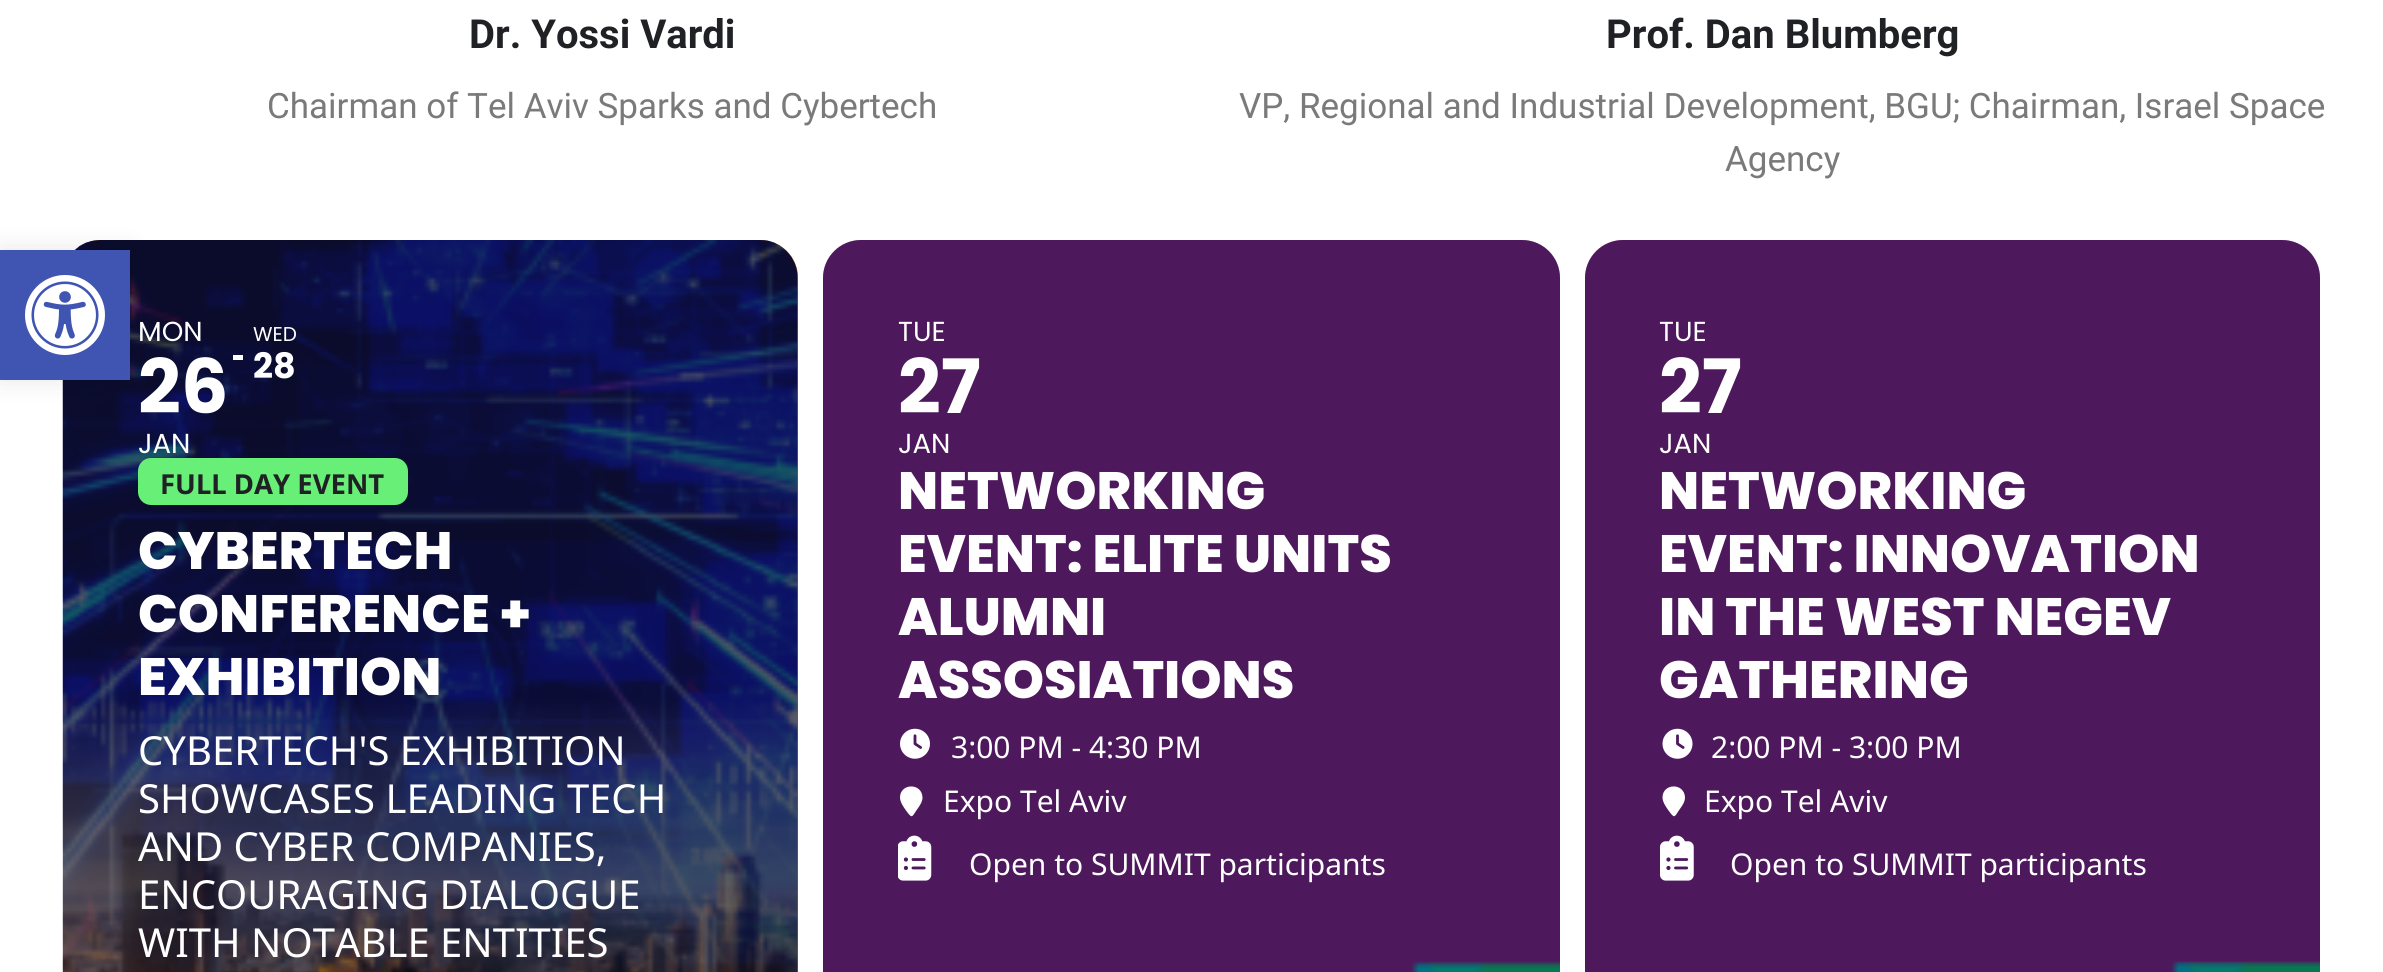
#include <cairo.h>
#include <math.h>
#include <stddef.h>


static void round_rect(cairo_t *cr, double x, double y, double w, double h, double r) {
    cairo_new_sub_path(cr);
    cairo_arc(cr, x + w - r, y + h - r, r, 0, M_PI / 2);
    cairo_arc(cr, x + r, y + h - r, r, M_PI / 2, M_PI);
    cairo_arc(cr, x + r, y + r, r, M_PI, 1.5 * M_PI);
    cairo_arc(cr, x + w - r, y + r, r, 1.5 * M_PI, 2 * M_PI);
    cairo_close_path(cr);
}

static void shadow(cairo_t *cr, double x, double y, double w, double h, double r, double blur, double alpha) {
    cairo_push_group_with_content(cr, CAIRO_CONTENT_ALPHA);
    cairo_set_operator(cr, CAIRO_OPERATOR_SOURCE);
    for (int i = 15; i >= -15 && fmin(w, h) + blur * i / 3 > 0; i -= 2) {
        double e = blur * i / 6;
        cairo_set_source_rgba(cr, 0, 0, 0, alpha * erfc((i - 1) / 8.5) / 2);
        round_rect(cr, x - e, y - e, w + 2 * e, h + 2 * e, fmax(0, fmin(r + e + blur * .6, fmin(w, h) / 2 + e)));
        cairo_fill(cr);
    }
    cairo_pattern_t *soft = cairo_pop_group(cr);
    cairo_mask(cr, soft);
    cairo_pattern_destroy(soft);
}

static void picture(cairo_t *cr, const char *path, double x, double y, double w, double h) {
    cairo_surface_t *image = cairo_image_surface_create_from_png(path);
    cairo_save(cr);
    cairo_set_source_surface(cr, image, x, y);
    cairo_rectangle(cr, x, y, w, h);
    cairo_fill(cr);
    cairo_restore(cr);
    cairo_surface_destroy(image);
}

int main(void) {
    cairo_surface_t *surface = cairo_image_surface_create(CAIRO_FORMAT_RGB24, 2383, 972);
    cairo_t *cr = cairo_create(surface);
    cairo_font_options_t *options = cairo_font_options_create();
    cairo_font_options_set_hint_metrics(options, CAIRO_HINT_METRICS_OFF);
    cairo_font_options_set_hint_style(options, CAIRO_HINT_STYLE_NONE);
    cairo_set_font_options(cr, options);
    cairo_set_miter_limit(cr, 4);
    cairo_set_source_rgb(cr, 1, 1, 1);
    cairo_paint(cr);
    cairo_set_source_rgb(cr, 0.941, 0.545, 0.094);
    round_rect(cr, 63, 240, 735, 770, 38);
    cairo_fill(cr);
    picture(cr, "img2.png", 62, 240, 736, 732);
    cairo_set_source_rgba(cr, 0, 0, 0, 0.4);
    round_rect(cr, 63, 240, 735, 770, 38);
    cairo_fill(cr);
    cairo_set_source_rgb(cr, 0, 0, 0);
    shadow(cr, 0, 250, 130, 130, 0, 12.5, 0.1);
    cairo_set_source_rgb(cr, 0.251, 0.329, 0.698);
    cairo_rectangle(cr, 0, 250, 130, 130);
    cairo_fill(cr);
    picture(cr, "img1.png", 25, 275, 80, 80);
    cairo_select_font_face(cr, "Roboto", CAIRO_FONT_SLANT_NORMAL, CAIRO_FONT_WEIGHT_BOLD);
    cairo_set_font_size(cr, 40);
    cairo_set_source_rgb(cr, 0.125, 0.129, 0.141);
    cairo_move_to(cr, 469, 48);
    cairo_show_text(cr, "Dr. Yossi Vardi");
    cairo_select_font_face(cr, "Roboto", CAIRO_FONT_SLANT_NORMAL, CAIRO_FONT_WEIGHT_NORMAL);
    cairo_set_font_size(cr, 35);
    cairo_set_source_rgb(cr, 0.478, 0.478, 0.478);
    cairo_move_to(cr, 267, 118);
    cairo_show_text(cr, "Chairman of Tel Aviv Sparks and Cybertech");
    cairo_select_font_face(cr, "Roboto", CAIRO_FONT_SLANT_NORMAL, CAIRO_FONT_WEIGHT_BOLD);
    cairo_set_font_size(cr, 40);
    cairo_set_source_rgb(cr, 0.125, 0.129, 0.141);
    cairo_move_to(cr, 1606, 48);
    cairo_show_text(cr, "Prof. Dan Blumberg");
    cairo_select_font_face(cr, "Roboto", CAIRO_FONT_SLANT_NORMAL, CAIRO_FONT_WEIGHT_NORMAL);
    cairo_set_font_size(cr, 35);
    cairo_set_source_rgb(cr, 0.478, 0.478, 0.478);
    cairo_move_to(cr, 1239, 118);
    cairo_show_text(cr, "VP, Regional and Industrial Development, BGU; Chairman, Israel Space");
    cairo_move_to(cr, 1725, 171);
    cairo_show_text(cr, "Agency");
    cairo_select_font_face(cr, "Poppins", CAIRO_FONT_SLANT_NORMAL, CAIRO_FONT_WEIGHT_NORMAL);
    cairo_set_font_size(cr, 27.5);
    cairo_set_source_rgb(cr, 1, 1, 1);
    cairo_move_to(cr, 138, 341);
    cairo_show_text(cr, "MON");
    cairo_select_font_face(cr, "Poppins", CAIRO_FONT_SLANT_NORMAL, CAIRO_FONT_WEIGHT_BOLD);
    cairo_set_font_size(cr, 75);
    cairo_move_to(cr, 138, 413);
    cairo_show_text(cr, "26");
    cairo_select_font_face(cr, "Poppins", CAIRO_FONT_SLANT_NORMAL, CAIRO_FONT_WEIGHT_NORMAL);
    cairo_set_font_size(cr, 27.5);
    cairo_move_to(cr, 138, 453);
    cairo_show_text(cr, "JAN");
    cairo_set_font_size(cr, 20);
    cairo_move_to(cr, 253, 341);
    cairo_show_text(cr, "WED");
    cairo_rectangle(cr, 233, 355, 10, 5);
    cairo_fill(cr);
    cairo_select_font_face(cr, "Poppins", CAIRO_FONT_SLANT_NORMAL, CAIRO_FONT_WEIGHT_BOLD);
    cairo_set_font_size(cr, 35);
    cairo_move_to(cr, 253, 378);
    cairo_show_text(cr, "28");
    cairo_set_source_rgb(cr, 0.404, 0.937, 0.471);
    round_rect(cr, 138, 458, 270, 47, 13);
    cairo_fill(cr);
    cairo_select_font_face(cr, "Noto Sans", CAIRO_FONT_SLANT_NORMAL, CAIRO_FONT_WEIGHT_BOLD);
    cairo_set_font_size(cr, 27.5);
    cairo_set_source_rgb(cr, 0.125, 0.129, 0.141);
    cairo_move_to(cr, 160, 494);
    cairo_show_text(cr, "FULL DAY EVENT");
    cairo_select_font_face(cr, "Poppins ExtraBold", CAIRO_FONT_SLANT_NORMAL, CAIRO_FONT_WEIGHT_NORMAL);
    cairo_set_font_size(cr, 52.5);
    cairo_set_source_rgb(cr, 1, 1, 1);
    cairo_move_to(cr, 138, 569);
    cairo_show_text(cr, "CYBERTECH");
    cairo_move_to(cr, 138, 632);
    cairo_show_text(cr, "CONFERENCE +");
    cairo_move_to(cr, 138, 695);
    cairo_show_text(cr, "EXHIBITION");
    cairo_select_font_face(cr, "Noto Sans", CAIRO_FONT_SLANT_NORMAL, CAIRO_FONT_WEIGHT_NORMAL);
    cairo_set_font_size(cr, 40);
    cairo_move_to(cr, 138, 765);
    cairo_show_text(cr, "CYBERTECH'S EXHIBITION");
    cairo_move_to(cr, 138, 813);
    cairo_show_text(cr, "SHOWCASES LEADING TECH");
    cairo_move_to(cr, 138, 861);
    cairo_show_text(cr, "AND CYBER COMPANIES,");
    cairo_move_to(cr, 138, 909);
    cairo_show_text(cr, "ENCOURAGING DIALOGUE");
    cairo_move_to(cr, 138, 957);
    cairo_show_text(cr, "WITH NOTABLE ENTITIES");
    cairo_set_source_rgb(cr, 0.506, 0.161, 0.6);
    round_rect(cr, 823, 240, 737, 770, 38);
    cairo_fill(cr);
    picture(cr, "img3.png", 1411, 961, 149, 11);
    cairo_set_source_rgba(cr, 0, 0, 0, 0.4);
    round_rect(cr, 823, 240, 737, 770, 38);
    cairo_fill(cr);
    cairo_select_font_face(cr, "Poppins", CAIRO_FONT_SLANT_NORMAL, CAIRO_FONT_WEIGHT_NORMAL);
    cairo_set_font_size(cr, 27.5);
    cairo_set_source_rgb(cr, 1, 1, 1);
    cairo_move_to(cr, 898, 341);
    cairo_show_text(cr, "TUE");
    cairo_select_font_face(cr, "Poppins", CAIRO_FONT_SLANT_NORMAL, CAIRO_FONT_WEIGHT_BOLD);
    cairo_set_font_size(cr, 75);
    cairo_move_to(cr, 898, 413);
    cairo_show_text(cr, "27");
    cairo_select_font_face(cr, "Poppins", CAIRO_FONT_SLANT_NORMAL, CAIRO_FONT_WEIGHT_NORMAL);
    cairo_set_font_size(cr, 27.5);
    cairo_move_to(cr, 898, 453);
    cairo_show_text(cr, "JAN");
    cairo_select_font_face(cr, "Poppins ExtraBold", CAIRO_FONT_SLANT_NORMAL, CAIRO_FONT_WEIGHT_NORMAL);
    cairo_set_font_size(cr, 52.5);
    cairo_move_to(cr, 898, 509);
    cairo_show_text(cr, "NETWORKING");
    cairo_move_to(cr, 898, 572);
    cairo_show_text(cr, "EVENT: ELITE UNITS");
    cairo_move_to(cr, 898, 635);
    cairo_show_text(cr, "ALUMNI");
    cairo_move_to(cr, 898, 698);
    cairo_show_text(cr, "ASSOSIATIONS");
    picture(cr, "img4.png", 900, 728, 30, 31);
    cairo_select_font_face(cr, "Noto Sans", CAIRO_FONT_SLANT_NORMAL, CAIRO_FONT_WEIGHT_NORMAL);
    cairo_set_font_size(cr, 30);
    cairo_move_to(cr, 951, 758);
    cairo_show_text(cr, "3:00 PM - 4:30 PM");
    cairo_new_path(cr);
    cairo_move_to(cr, 922.5, 797.5);
    cairo_curve_to(cr, 922.5, 802, 919.5, 806, 917, 809.5);
    cairo_curve_to(cr, 911.5, 818, 912, 818.5, 906, 810.5);
    cairo_curve_to(cr, 903.5, 807, 900, 802, 900, 797.5);
    cairo_curve_to(cr, 900, 783, 922, 782.5, 922.5, 797.5);
    cairo_close_path(cr);
    cairo_fill(cr);
    cairo_move_to(cr, 943, 812);
    cairo_show_text(cr, "Expo Tel Aviv");
    picture(cr, "img5.png", 898, 835, 34, 46);
    cairo_move_to(cr, 969, 875);
    cairo_show_text(cr, "Open to SUMMIT participants");
    cairo_set_source_rgb(cr, 0.506, 0.161, 0.6);
    round_rect(cr, 1585, 240, 735, 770, 38);
    cairo_fill(cr);
    picture(cr, "img6.png", 2171, 961, 149, 11);
    cairo_set_source_rgba(cr, 0, 0, 0, 0.4);
    round_rect(cr, 1585, 240, 735, 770, 38);
    cairo_fill(cr);
    cairo_select_font_face(cr, "Poppins", CAIRO_FONT_SLANT_NORMAL, CAIRO_FONT_WEIGHT_NORMAL);
    cairo_set_font_size(cr, 27.5);
    cairo_set_source_rgb(cr, 1, 1, 1);
    cairo_move_to(cr, 1659, 341);
    cairo_show_text(cr, "TUE");
    cairo_select_font_face(cr, "Poppins", CAIRO_FONT_SLANT_NORMAL, CAIRO_FONT_WEIGHT_BOLD);
    cairo_set_font_size(cr, 75);
    cairo_move_to(cr, 1659, 413);
    cairo_show_text(cr, "27");
    cairo_select_font_face(cr, "Poppins", CAIRO_FONT_SLANT_NORMAL, CAIRO_FONT_WEIGHT_NORMAL);
    cairo_set_font_size(cr, 27.5);
    cairo_move_to(cr, 1659, 453);
    cairo_show_text(cr, "JAN");
    cairo_select_font_face(cr, "Poppins ExtraBold", CAIRO_FONT_SLANT_NORMAL, CAIRO_FONT_WEIGHT_NORMAL);
    cairo_set_font_size(cr, 52.5);
    cairo_move_to(cr, 1659, 509);
    cairo_show_text(cr, "NETWORKING");
    cairo_move_to(cr, 1659, 572);
    cairo_show_text(cr, "EVENT: INNOVATION");
    cairo_move_to(cr, 1659, 635);
    cairo_show_text(cr, "IN THE WEST NEGEV");
    cairo_move_to(cr, 1659, 698);
    cairo_show_text(cr, "GATHERING");
    picture(cr, "img7.png", 1662, 728, 31, 31);
    cairo_select_font_face(cr, "Noto Sans", CAIRO_FONT_SLANT_NORMAL, CAIRO_FONT_WEIGHT_NORMAL);
    cairo_set_font_size(cr, 30);
    cairo_move_to(cr, 1711, 758);
    cairo_show_text(cr, "2:00 PM - 3:00 PM");
    cairo_new_path(cr);
    cairo_move_to(cr, 1685, 797.5);
    cairo_curve_to(cr, 1685, 802, 1682, 806, 1679.5, 809.5);
    cairo_curve_to(cr, 1674, 818, 1674.5, 818.5, 1668.5, 810.5);
    cairo_curve_to(cr, 1666, 807, 1662.5, 802, 1662.5, 797.5);
    cairo_curve_to(cr, 1662.5, 783, 1684.5, 782.5, 1685, 797.5);
    cairo_close_path(cr);
    cairo_fill(cr);
    cairo_move_to(cr, 1704, 812);
    cairo_show_text(cr, "Expo Tel Aviv");
    picture(cr, "img8.png", 1660, 835, 34, 46);
    cairo_move_to(cr, 1730, 875);
    cairo_show_text(cr, "Open to SUMMIT participants");
    cairo_surface_write_to_png(surface, "page.png");
    cairo_font_options_destroy(options);
    cairo_destroy(cr);
    cairo_surface_destroy(surface);
    return 0;
}
